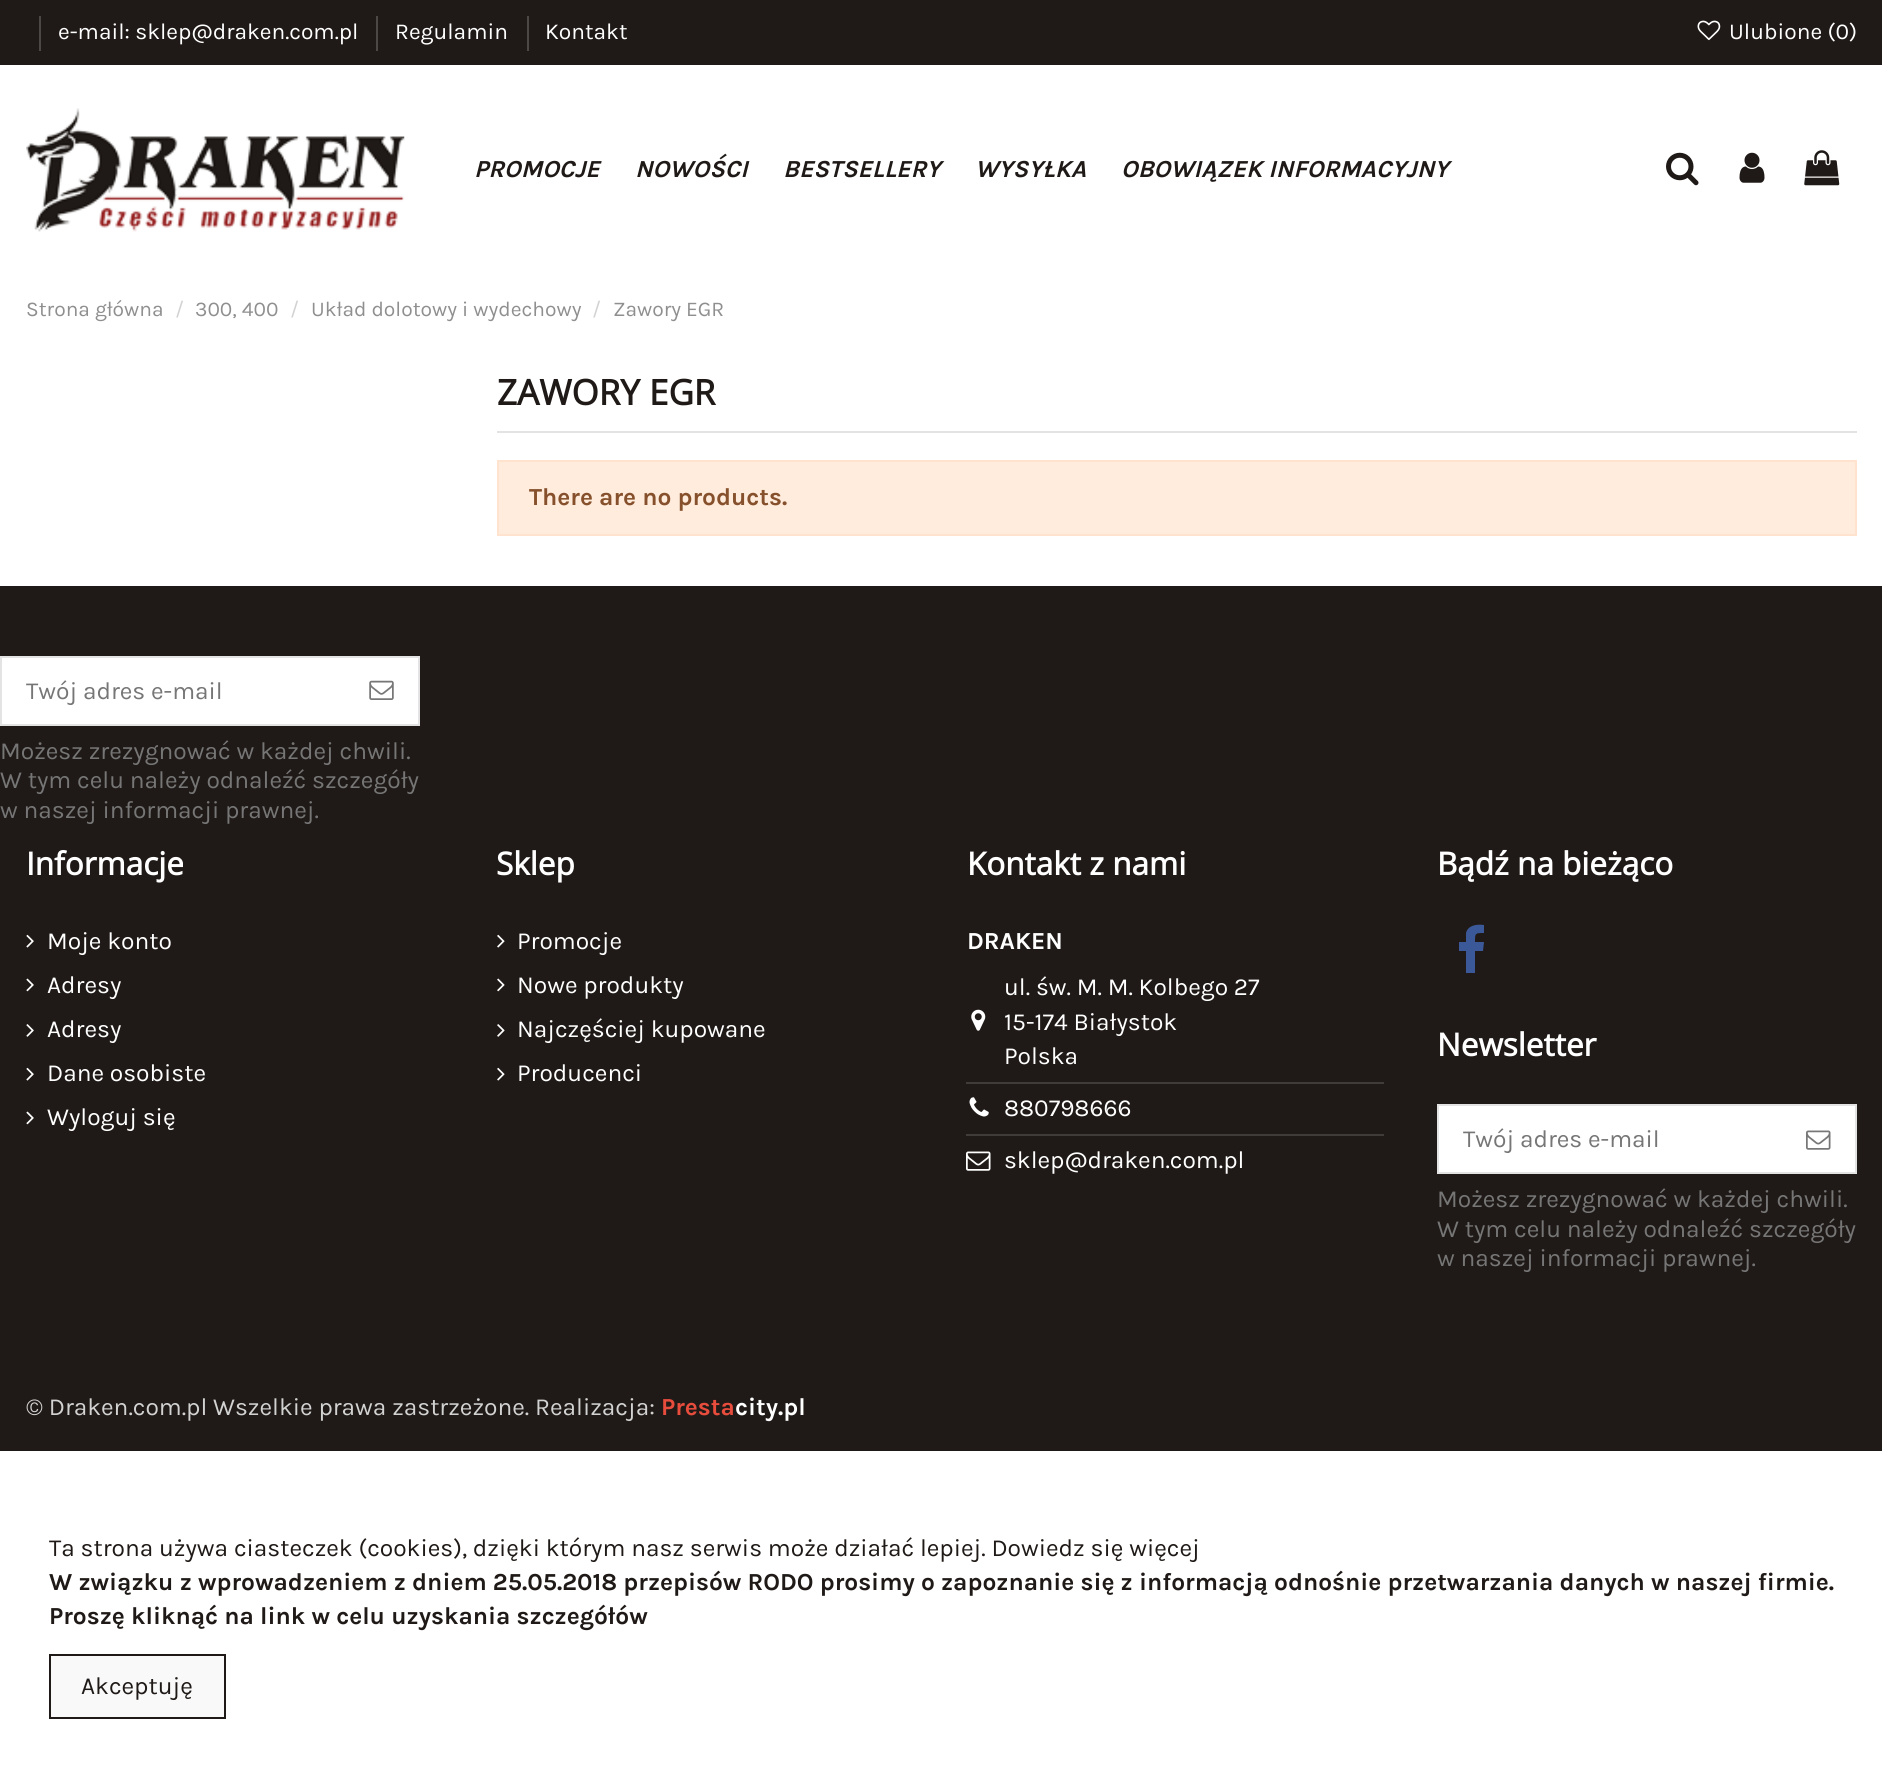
#include <cairo.h>
#include <math.h>
#include <stddef.h>


static void picture(cairo_t *cr, const char *path, double x, double y, double w, double h) {
    cairo_surface_t *image = cairo_image_surface_create_from_png(path);
    cairo_save(cr);
    cairo_set_source_surface(cr, image, x, y);
    cairo_rectangle(cr, x, y, w, h);
    cairo_fill(cr);
    cairo_restore(cr);
    cairo_surface_destroy(image);
}

int main(void) {
    cairo_surface_t *surface = cairo_image_surface_create(CAIRO_FORMAT_RGB24, 1882, 1767);
    cairo_t *cr = cairo_create(surface);
    cairo_font_options_t *options = cairo_font_options_create();
    cairo_font_options_set_hint_metrics(options, CAIRO_HINT_METRICS_OFF);
    cairo_font_options_set_hint_style(options, CAIRO_HINT_STYLE_NONE);
    cairo_set_font_options(cr, options);
    cairo_set_miter_limit(cr, 4);
    cairo_set_source_rgb(cr, 1, 1, 1);
    cairo_paint(cr);
    cairo_set_source_rgb(cr, 0.122, 0.102, 0.09);
    cairo_rectangle(cr, 0, 0, 1882, 65);
    cairo_fill(cr);
    cairo_set_source_rgb(cr, 0.298, 0.282, 0.271);
    cairo_rectangle(cr, 39, 16, 2, 35);
    cairo_fill(cr);
    cairo_select_font_face(cr, "Karla", CAIRO_FONT_SLANT_NORMAL, CAIRO_FONT_WEIGHT_NORMAL);
    cairo_set_font_size(cr, 22.75);
    cairo_set_source_rgb(cr, 1, 1, 1);
    cairo_move_to(cr, 58, 39);
    cairo_show_text(cr, "e-mail: sklep@draken.com.pl");
    cairo_set_source_rgb(cr, 0.298, 0.282, 0.271);
    cairo_rectangle(cr, 376, 16, 2, 35);
    cairo_fill(cr);
    cairo_set_source_rgb(cr, 1, 1, 1);
    cairo_move_to(cr, 395, 39);
    cairo_show_text(cr, "Regulamin");
    cairo_set_source_rgb(cr, 0.298, 0.282, 0.271);
    cairo_rectangle(cr, 527, 16, 2, 35);
    cairo_fill(cr);
    cairo_set_source_rgb(cr, 1, 1, 1);
    cairo_move_to(cr, 545, 39);
    cairo_show_text(cr, "Kontakt");
    picture(cr, "img1.png", 1697, 20, 24, 21);
    cairo_move_to(cr, 1729, 39);
    cairo_show_text(cr, "Ulubione (0)");
    picture(cr, "img2.png", 26, 108, 379, 124);
    cairo_select_font_face(cr, "Karla", CAIRO_FONT_SLANT_ITALIC, CAIRO_FONT_WEIGHT_BOLD);
    cairo_set_font_size(cr, 24.5);
    cairo_set_source_rgb(cr, 0.122, 0.102, 0.09);
    cairo_move_to(cr, 474, 177);
    cairo_show_text(cr, "PROMOCJE");
    cairo_move_to(cr, 635, 177);
    cairo_show_text(cr, "NOWOŚCI");
    cairo_move_to(cr, 783, 177);
    cairo_show_text(cr, "BESTSELLERY");
    cairo_move_to(cr, 975, 177);
    cairo_show_text(cr, "WYSYŁKA");
    cairo_move_to(cr, 1121, 177);
    cairo_show_text(cr, "OBOWIĄZEK INFORMACYJNY");
    picture(cr, "img3.png", 1666, 152, 33, 34);
    picture(cr, "img4.png", 1739, 152, 26, 31);
    picture(cr, "img5.png", 1804, 150, 36, 36);
    cairo_select_font_face(cr, "Karla", CAIRO_FONT_SLANT_NORMAL, CAIRO_FONT_WEIGHT_NORMAL);
    cairo_set_font_size(cr, 21);
    cairo_set_source_rgb(cr, 0.561, 0.561, 0.561);
    cairo_move_to(cr, 26, 316);
    cairo_show_text(cr, "Strona główna");
    cairo_set_source_rgb(cr, 0.824, 0.824, 0.824);
    cairo_move_to(cr, 175, 316);
    cairo_show_text(cr, "/");
    cairo_set_source_rgb(cr, 0.561, 0.561, 0.561);
    cairo_move_to(cr, 195, 316);
    cairo_show_text(cr, "300, 400");
    cairo_set_source_rgb(cr, 0.824, 0.824, 0.824);
    cairo_move_to(cr, 290, 316);
    cairo_show_text(cr, "/");
    cairo_set_source_rgb(cr, 0.561, 0.561, 0.561);
    cairo_move_to(cr, 311, 316);
    cairo_show_text(cr, "Układ dolotowy i wydechowy");
    cairo_set_source_rgb(cr, 0.824, 0.824, 0.824);
    cairo_move_to(cr, 592, 316);
    cairo_show_text(cr, "/");
    cairo_set_source_rgb(cr, 0.561, 0.561, 0.561);
    cairo_move_to(cr, 613, 316);
    cairo_show_text(cr, "Zawory EGR");
    cairo_set_source_rgb(cr, 0.89, 0.89, 0.89);
    cairo_rectangle(cr, 497, 431, 1360, 2);
    cairo_fill(cr);
    cairo_select_font_face(cr, "Open Sans", CAIRO_FONT_SLANT_NORMAL, CAIRO_FONT_WEIGHT_BOLD);
    cairo_set_font_size(cr, 35);
    cairo_set_source_rgb(cr, 0.122, 0.102, 0.09);
    cairo_move_to(cr, 497, 405);
    cairo_show_text(cr, "ZAWORY EGR");
    cairo_set_source_rgb(cr, 1, 0.922, 0.863);
    cairo_rectangle(cr, 498, 461, 1358, 74);
    cairo_fill_preserve(cr);
    cairo_set_source_rgb(cr, 1, 0.89, 0.812);
    cairo_stroke(cr);
    cairo_select_font_face(cr, "Karla", CAIRO_FONT_SLANT_NORMAL, CAIRO_FONT_WEIGHT_BOLD);
    cairo_set_font_size(cr, 24.5);
    cairo_set_source_rgb(cr, 0.522, 0.314, 0.169);
    cairo_move_to(cr, 529, 505);
    cairo_show_text(cr, "There are no products.");
    cairo_set_source_rgb(cr, 0.122, 0.102, 0.09);
    cairo_rectangle(cr, 0, 586, 1882, 865);
    cairo_fill(cr);
    cairo_set_source_rgb(cr, 1, 1, 1);
    cairo_rectangle(cr, 1, 657, 418, 68);
    cairo_fill_preserve(cr);
    cairo_set_source_rgb(cr, 0.89, 0.89, 0.89);
    cairo_stroke(cr);
    cairo_select_font_face(cr, "Karla", CAIRO_FONT_SLANT_NORMAL, CAIRO_FONT_WEIGHT_NORMAL);
    cairo_set_source_rgb(cr, 0.463, 0.463, 0.463);
    cairo_move_to(cr, 26, 699);
    cairo_show_text(cr, "Twój adres e-mail");
    picture(cr, "img6.png", 369, 680, 25, 20);
    cairo_move_to(cr, 0, 759);
    cairo_show_text(cr, "Możesz zrezygnować w każdej chwili.");
    cairo_move_to(cr, 0, 788);
    cairo_show_text(cr, "W tym celu należy odnaleźć szczegóły");
    cairo_move_to(cr, 0, 818);
    cairo_show_text(cr, "w naszej informacji prawnej.");
    cairo_select_font_face(cr, "Open Sans", CAIRO_FONT_SLANT_NORMAL, CAIRO_FONT_WEIGHT_BOLD);
    cairo_set_font_size(cr, 31.5);
    cairo_set_source_rgb(cr, 1, 1, 1);
    cairo_move_to(cr, 26, 875);
    cairo_show_text(cr, "Informacje");
    picture(cr, "img7.png", 26, 934, 8, 14);
    cairo_select_font_face(cr, "Karla", CAIRO_FONT_SLANT_NORMAL, CAIRO_FONT_WEIGHT_NORMAL);
    cairo_set_font_size(cr, 24.5);
    cairo_move_to(cr, 47, 949);
    cairo_show_text(cr, "Moje konto");
    picture(cr, "img8.png", 26, 978, 8, 14);
    cairo_move_to(cr, 47, 993);
    cairo_show_text(cr, "Adresy");
    picture(cr, "img9.png", 26, 1024, 8, 13);
    cairo_move_to(cr, 47, 1037);
    cairo_show_text(cr, "Adresy");
    picture(cr, "img7.png", 26, 1067, 8, 14);
    cairo_move_to(cr, 47, 1081);
    cairo_show_text(cr, "Dane osobiste");
    picture(cr, "img8.png", 26, 1111, 8, 14);
    cairo_move_to(cr, 47, 1125);
    cairo_show_text(cr, "Wyloguj się");
    cairo_select_font_face(cr, "Open Sans", CAIRO_FONT_SLANT_NORMAL, CAIRO_FONT_WEIGHT_BOLD);
    cairo_set_font_size(cr, 31.5);
    cairo_move_to(cr, 496, 875);
    cairo_show_text(cr, "Sklep");
    picture(cr, "img10.png", 497, 934, 8, 14);
    cairo_select_font_face(cr, "Karla", CAIRO_FONT_SLANT_NORMAL, CAIRO_FONT_WEIGHT_NORMAL);
    cairo_set_font_size(cr, 24.5);
    cairo_move_to(cr, 517, 949);
    cairo_show_text(cr, "Promocje");
    picture(cr, "img11.png", 497, 978, 8, 14);
    cairo_move_to(cr, 517, 993);
    cairo_show_text(cr, "Nowe produkty");
    picture(cr, "img12.png", 497, 1024, 8, 13);
    cairo_move_to(cr, 517, 1037);
    cairo_show_text(cr, "Najczęściej kupowane");
    picture(cr, "img10.png", 497, 1067, 8, 14);
    cairo_move_to(cr, 517, 1081);
    cairo_show_text(cr, "Producenci");
    cairo_select_font_face(cr, "Open Sans", CAIRO_FONT_SLANT_NORMAL, CAIRO_FONT_WEIGHT_BOLD);
    cairo_set_font_size(cr, 31.5);
    cairo_move_to(cr, 967, 875);
    cairo_show_text(cr, "Kontakt z nami");
    cairo_select_font_face(cr, "Karla", CAIRO_FONT_SLANT_NORMAL, CAIRO_FONT_WEIGHT_BOLD);
    cairo_set_font_size(cr, 24.5);
    cairo_move_to(cr, 967, 949);
    cairo_show_text(cr, "DRAKEN");
    picture(cr, "img13.png", 971, 1009, 15, 22);
    cairo_select_font_face(cr, "Karla", CAIRO_FONT_SLANT_NORMAL, CAIRO_FONT_WEIGHT_NORMAL);
    cairo_move_to(cr, 1004, 995);
    cairo_show_text(cr, "ul. św. M. M. Kolbego 27");
    cairo_move_to(cr, 1004, 1030);
    cairo_show_text(cr, "15-174 Białystok");
    cairo_move_to(cr, 1004, 1064);
    cairo_show_text(cr, "Polska");
    cairo_set_source_rgb(cr, 0.247, 0.235, 0.224);
    cairo_rectangle(cr, 966, 1082, 418, 2);
    cairo_fill(cr);
    picture(cr, "img14.png", 969, 1097, 20, 20);
    cairo_set_source_rgb(cr, 1, 1, 1);
    cairo_move_to(cr, 1004, 1116);
    cairo_show_text(cr, "880798666");
    cairo_set_source_rgb(cr, 0.247, 0.235, 0.224);
    cairo_rectangle(cr, 966, 1134, 418, 2);
    cairo_fill(cr);
    picture(cr, "img15.png", 966, 1151, 25, 20);
    cairo_set_source_rgb(cr, 1, 1, 1);
    cairo_move_to(cr, 1004, 1168);
    cairo_show_text(cr, "sklep@draken.com.pl");
    cairo_select_font_face(cr, "Open Sans", CAIRO_FONT_SLANT_NORMAL, CAIRO_FONT_WEIGHT_BOLD);
    cairo_set_font_size(cr, 31.5);
    cairo_move_to(cr, 1437, 875);
    cairo_show_text(cr, "Bądź na bieżąco");
    cairo_set_source_rgb(cr, 0.231, 0.349, 0.596);
    cairo_new_path(cr);
    cairo_move_to(cr, 1484, 925);
    cairo_line_to(cr, 1484, 933);
    cairo_curve_to(cr, 1475, 933, 1475, 933, 1475, 942);
    cairo_line_to(cr, 1484, 942);
    cairo_line_to(cr, 1483, 951);
    cairo_line_to(cr, 1475, 951);
    cairo_line_to(cr, 1475, 973);
    cairo_line_to(cr, 1466, 973);
    cairo_line_to(cr, 1466, 951);
    cairo_line_to(cr, 1459, 951);
    cairo_line_to(cr, 1459, 942);
    cairo_line_to(cr, 1466, 942);
    cairo_line_to(cr, 1466, 933);
    cairo_curve_to(cr, 1468, 925, 1477, 924, 1484, 925);
    cairo_close_path(cr);
    cairo_fill(cr);
    cairo_set_source_rgb(cr, 1, 1, 1);
    cairo_move_to(cr, 1437, 1056);
    cairo_show_text(cr, "Newsletter");
    cairo_rectangle(cr, 1438, 1105, 418, 68);
    cairo_fill_preserve(cr);
    cairo_set_source_rgb(cr, 0.89, 0.89, 0.89);
    cairo_stroke(cr);
    cairo_select_font_face(cr, "Karla", CAIRO_FONT_SLANT_NORMAL, CAIRO_FONT_WEIGHT_NORMAL);
    cairo_set_font_size(cr, 24.5);
    cairo_set_source_rgb(cr, 0.463, 0.463, 0.463);
    cairo_move_to(cr, 1463, 1147);
    cairo_show_text(cr, "Twój adres e-mail");
    picture(cr, "img16.png", 1806, 1130, 25, 20);
    cairo_move_to(cr, 1437, 1207);
    cairo_show_text(cr, "Możesz zrezygnować w każdej chwili.");
    cairo_move_to(cr, 1437, 1237);
    cairo_show_text(cr, "W tym celu należy odnaleźć szczegóły");
    cairo_move_to(cr, 1437, 1266);
    cairo_show_text(cr, "w naszej informacji prawnej.");
    cairo_set_source_rgb(cr, 0.824, 0.824, 0.824);
    cairo_move_to(cr, 26, 1415);
    cairo_show_text(cr, "© Draken.com.pl Wszelkie prawa zastrzeżone. Realizacja:");
    cairo_select_font_face(cr, "Karla", CAIRO_FONT_SLANT_NORMAL, CAIRO_FONT_WEIGHT_BOLD);
    cairo_set_source_rgb(cr, 0.91, 0.298, 0.235);
    cairo_move_to(cr, 661, 1415);
    cairo_show_text(cr, "Presta");
    cairo_set_source_rgb(cr, 1, 1, 1);
    cairo_move_to(cr, 735, 1415);
    cairo_show_text(cr, "city.pl");
    cairo_select_font_face(cr, "Karla", CAIRO_FONT_SLANT_NORMAL, CAIRO_FONT_WEIGHT_NORMAL);
    cairo_set_source_rgb(cr, 0.122, 0.102, 0.09);
    cairo_move_to(cr, 49, 1556);
    cairo_show_text(cr, "Ta strona używa ciasteczek (cookies), dzięki którym nasz serwis może działać lepiej. Dowiedz się więcej");
    cairo_select_font_face(cr, "Karla", CAIRO_FONT_SLANT_NORMAL, CAIRO_FONT_WEIGHT_BOLD);
    cairo_move_to(cr, 49, 1590);
    cairo_show_text(cr, "W związku z wprowadzeniem z dniem 25.05.2018 przepisów RODO prosimy o zapoznanie się z informacją odnośnie przetwarzania danych w naszej firmie.");
    cairo_move_to(cr, 49, 1624);
    cairo_show_text(cr, "Proszę kliknąć na link w celu uzyskania szczegółów");
    cairo_set_source_rgb(cr, 0.973, 0.973, 0.973);
    cairo_rectangle(cr, 50, 1655, 175, 63);
    cairo_fill_preserve(cr);
    cairo_set_source_rgb(cr, 0.122, 0.102, 0.09);
    cairo_stroke(cr);
    cairo_select_font_face(cr, "Karla", CAIRO_FONT_SLANT_NORMAL, CAIRO_FONT_WEIGHT_NORMAL);
    cairo_move_to(cr, 81, 1694);
    cairo_show_text(cr, "Akceptuję");
    cairo_surface_write_to_png(surface, "page.png");
    cairo_font_options_destroy(options);
    cairo_destroy(cr);
    cairo_surface_destroy(surface);
    return 0;
}
